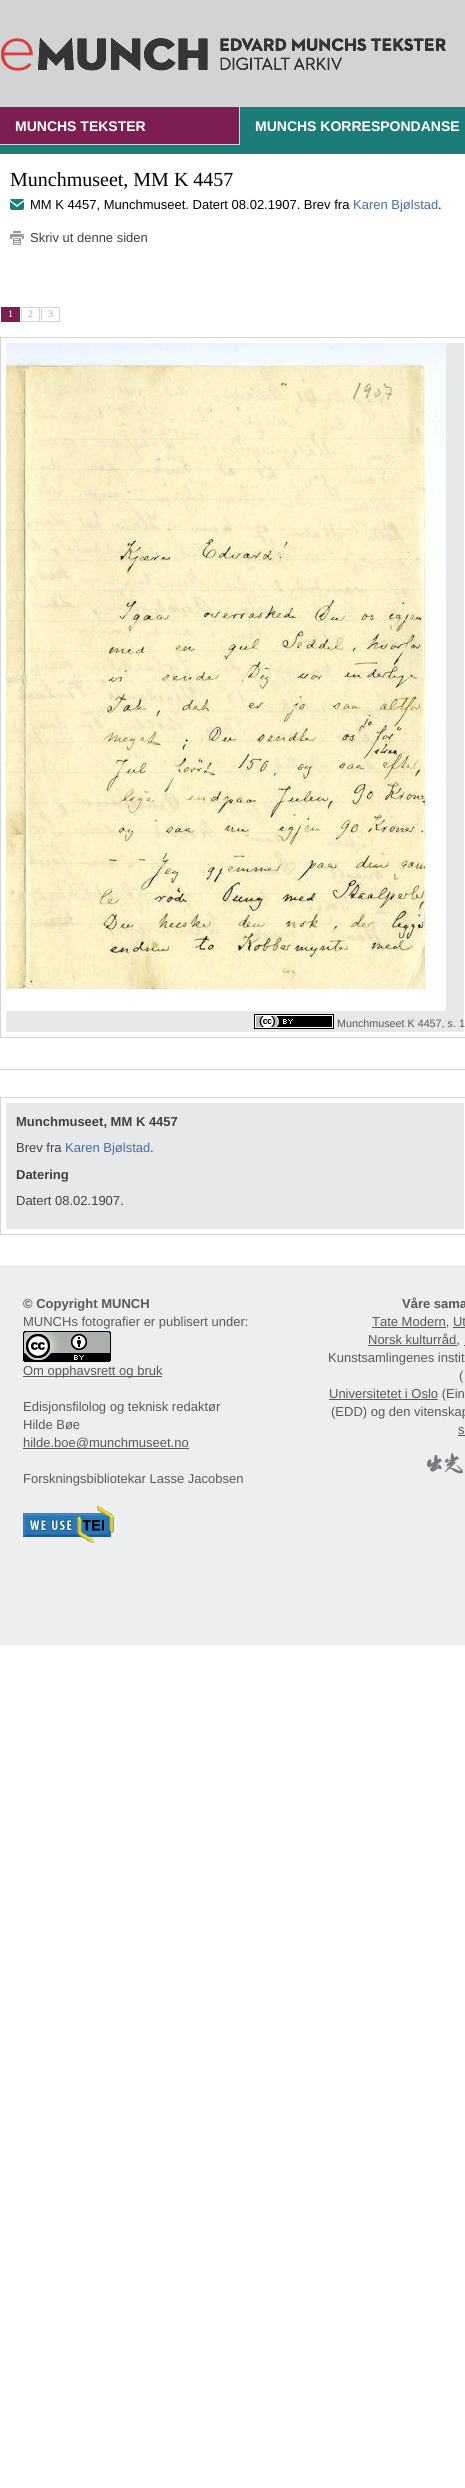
#include <cairo.h>
#include <math.h>
#include <stddef.h>


static void picture(cairo_t *cr, const char *path, double x, double y, double w, double h) {
    cairo_surface_t *image = cairo_image_surface_create_from_png(path);
    cairo_save(cr);
    cairo_set_source_surface(cr, image, x, y);
    cairo_rectangle(cr, x, y, w, h);
    cairo_fill(cr);
    cairo_restore(cr);
    cairo_surface_destroy(image);
}

int main(void) {
    cairo_surface_t *surface = cairo_image_surface_create(CAIRO_FORMAT_RGB24, 465, 2488);
    cairo_t *cr = cairo_create(surface);
    cairo_font_options_t *options = cairo_font_options_create();
    cairo_font_options_set_hint_metrics(options, CAIRO_HINT_METRICS_OFF);
    cairo_font_options_set_hint_style(options, CAIRO_HINT_STYLE_NONE);
    cairo_set_font_options(cr, options);
    cairo_set_miter_limit(cr, 4);
    cairo_set_source_rgb(cr, 1, 1, 1);
    cairo_paint(cr);
    cairo_set_source_rgb(cr, 0.824, 0.827, 0.835);
    cairo_rectangle(cr, 0, 0, 465, 145);
    cairo_fill(cr);
    picture(cr, "img1.png", 1, 38, 445, 33);
    cairo_set_source_rgb(cr, 0.11, 0.49, 0.471);
    cairo_rectangle(cr, 0, 145, 465, 9);
    cairo_fill(cr);
    cairo_set_source_rgb(cr, 0.49, 0.118, 0.322);
    cairo_rectangle(cr, 0, 107, 239, 37);
    cairo_fill(cr);
    cairo_select_font_face(cr, "Liberation Sans", CAIRO_FONT_SLANT_NORMAL, CAIRO_FONT_WEIGHT_BOLD);
    cairo_set_font_size(cr, 14);
    cairo_set_source_rgb(cr, 1, 1, 1);
    cairo_move_to(cr, 15, 131);
    cairo_show_text(cr, "MUNCHS TEKSTER");
    cairo_set_source_rgb(cr, 0.11, 0.49, 0.471);
    cairo_rectangle(cr, 240, 107, 225, 38);
    cairo_fill(cr);
    cairo_set_source_rgb(cr, 1, 1, 1);
    cairo_move_to(cr, 255, 131);
    cairo_show_text(cr, "MUNCHS KORRESPONDANSE");
    cairo_select_font_face(cr, "Liberation Serif", CAIRO_FONT_SLANT_NORMAL, CAIRO_FONT_WEIGHT_NORMAL);
    cairo_set_font_size(cr, 20);
    cairo_set_source_rgb(cr, 0, 0, 0);
    cairo_move_to(cr, 10, 186);
    cairo_show_text(cr, "Munchmuseet, MM K 4457");
    picture(cr, "img2.png", 10, 199, 14, 11);
    cairo_select_font_face(cr, "Liberation Sans", CAIRO_FONT_SLANT_NORMAL, CAIRO_FONT_WEIGHT_NORMAL);
    cairo_set_font_size(cr, 13);
    cairo_move_to(cr, 30, 209);
    cairo_show_text(cr, "MM K 4457, Munchmuseet. Datert 08.02.1907. Brev fra");
    cairo_set_source_rgb(cr, 0.282, 0.427, 0.659);
    cairo_move_to(cr, 353, 209);
    cairo_show_text(cr, "Karen Bjølstad");
    cairo_set_source_rgb(cr, 0, 0, 0);
    cairo_move_to(cr, 438, 209);
    cairo_show_text(cr, ".");
    picture(cr, "img3.png", 10, 231, 14, 14);
    cairo_set_source_rgb(cr, 0.255, 0.251, 0.259);
    cairo_move_to(cr, 30, 242);
    cairo_show_text(cr, "Skriv ut denne siden");
    cairo_set_source_rgb(cr, 0.49, 0.118, 0.322);
    cairo_rectangle(cr, 1, 307, 19, 15);
    cairo_fill(cr);
    cairo_select_font_face(cr, "Liberation Serif", CAIRO_FONT_SLANT_NORMAL, CAIRO_FONT_WEIGHT_NORMAL);
    cairo_set_font_size(cr, 10);
    cairo_set_source_rgb(cr, 1, 1, 1);
    cairo_move_to(cr, 8, 317);
    cairo_show_text(cr, "1");
    cairo_rectangle(cr, 21.5, 307.5, 18, 14);
    cairo_set_source_rgb(cr, 0.824, 0.827, 0.835);
    cairo_set_line_width(cr, 1);
    cairo_stroke(cr);
    cairo_set_source_rgb(cr, 0.655, 0.663, 0.675);
    cairo_move_to(cr, 28, 317);
    cairo_show_text(cr, "2");
    cairo_rectangle(cr, 41.5, 307.5, 18, 14);
    cairo_set_source_rgb(cr, 0.824, 0.827, 0.835);
    cairo_stroke(cr);
    cairo_set_source_rgb(cr, 0.655, 0.663, 0.675);
    cairo_move_to(cr, 48, 317);
    cairo_show_text(cr, "3");
    cairo_rectangle(cr, 0.5, 337.5, 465, 700);
    cairo_set_source_rgb(cr, 0.831, 0.835, 0.843);
    cairo_stroke(cr);
    cairo_set_source_rgb(cr, 0.906, 0.91, 0.914);
    cairo_rectangle(cr, 6, 343, 458, 689);
    cairo_fill(cr);
    picture(cr, "img4.png", 6, 343, 440, 668);
    picture(cr, "img5.png", 254, 1014, 80, 15);
    cairo_select_font_face(cr, "Liberation Sans", CAIRO_FONT_SLANT_NORMAL, CAIRO_FONT_WEIGHT_NORMAL);
    cairo_set_font_size(cr, 10.75);
    cairo_set_source_rgb(cr, 0.345, 0.349, 0.357);
    cairo_move_to(cr, 337, 1027);
    cairo_show_text(cr, "Munchmuseet K 4457, s. 1");
    cairo_set_source_rgb(cr, 0.824, 0.827, 0.835);
    cairo_rectangle(cr, 0, 1069, 465, 1);
    cairo_fill(cr);
    cairo_rectangle(cr, 0.5, 1097.5, 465, 137);
    cairo_set_source_rgb(cr, 0.831, 0.835, 0.843);
    cairo_stroke(cr);
    cairo_set_source_rgb(cr, 0.906, 0.91, 0.914);
    cairo_rectangle(cr, 6, 1103, 458, 126);
    cairo_fill(cr);
    cairo_select_font_face(cr, "Liberation Sans", CAIRO_FONT_SLANT_NORMAL, CAIRO_FONT_WEIGHT_BOLD);
    cairo_set_font_size(cr, 13);
    cairo_set_source_rgb(cr, 0.255, 0.251, 0.259);
    cairo_move_to(cr, 16, 1126);
    cairo_show_text(cr, "Munchmuseet, MM K 4457");
    cairo_select_font_face(cr, "Liberation Sans", CAIRO_FONT_SLANT_NORMAL, CAIRO_FONT_WEIGHT_NORMAL);
    cairo_move_to(cr, 16, 1152);
    cairo_show_text(cr, "Brev fra");
    cairo_set_source_rgb(cr, 0.282, 0.427, 0.659);
    cairo_move_to(cr, 65, 1152);
    cairo_show_text(cr, "Karen Bjølstad");
    cairo_set_source_rgb(cr, 0.255, 0.251, 0.259);
    cairo_move_to(cr, 150, 1152);
    cairo_show_text(cr, ".");
    cairo_select_font_face(cr, "Liberation Sans", CAIRO_FONT_SLANT_NORMAL, CAIRO_FONT_WEIGHT_BOLD);
    cairo_move_to(cr, 16, 1179);
    cairo_show_text(cr, "Datering");
    cairo_select_font_face(cr, "Liberation Sans", CAIRO_FONT_SLANT_NORMAL, CAIRO_FONT_WEIGHT_NORMAL);
    cairo_move_to(cr, 16, 1205);
    cairo_show_text(cr, "Datert 08.02.1907.");
    cairo_set_source_rgb(cr, 0.929, 0.933, 0.937);
    cairo_rectangle(cr, 0, 1265, 465, 380);
    cairo_fill(cr);
    cairo_select_font_face(cr, "Liberation Sans", CAIRO_FONT_SLANT_NORMAL, CAIRO_FONT_WEIGHT_BOLD);
    cairo_set_source_rgb(cr, 0.345, 0.349, 0.357);
    cairo_move_to(cr, 23, 1308);
    cairo_show_text(cr, "© Copyright MUNCH");
    cairo_select_font_face(cr, "Liberation Sans", CAIRO_FONT_SLANT_NORMAL, CAIRO_FONT_WEIGHT_NORMAL);
    cairo_move_to(cr, 23, 1326);
    cairo_show_text(cr, "MUNCHs fotografier er publisert under:");
    picture(cr, "img6.png", 23, 1331, 88, 31);
    cairo_rectangle(cr, 23, 1376, 139, 1);
    cairo_fill(cr);
    cairo_move_to(cr, 23, 1375);
    cairo_show_text(cr, "Om opphavsrett og bruk");
    cairo_move_to(cr, 23, 1411);
    cairo_show_text(cr, "Edisjonsfilolog og teknisk redaktør");
    cairo_move_to(cr, 23, 1429);
    cairo_show_text(cr, "Hilde Bøe");
    cairo_rectangle(cr, 23, 1448, 166, 1);
    cairo_fill(cr);
    cairo_move_to(cr, 23, 1447);
    cairo_show_text(cr, "hilde.boe@munchmuseet.no");
    cairo_move_to(cr, 23, 1483);
    cairo_show_text(cr, "Forskningsbibliotekar Lasse Jacobsen");
    picture(cr, "img7.png", 23, 1506, 91, 37);
    cairo_select_font_face(cr, "Liberation Sans", CAIRO_FONT_SLANT_NORMAL, CAIRO_FONT_WEIGHT_BOLD);
    cairo_move_to(cr, 402, 1308);
    cairo_show_text(cr, "Våre sama");
    cairo_rectangle(cr, 372, 1327, 74, 1);
    cairo_fill(cr);
    cairo_select_font_face(cr, "Liberation Sans", CAIRO_FONT_SLANT_NORMAL, CAIRO_FONT_WEIGHT_NORMAL);
    cairo_move_to(cr, 372, 1326);
    cairo_show_text(cr, "Tate Modern, Ut");
    cairo_rectangle(cr, 453, 1327, 12, 1);
    cairo_fill(cr);
    cairo_rectangle(cr, 368, 1345, 89, 1);
    cairo_fill(cr);
    cairo_move_to(cr, 368, 1344);
    cairo_show_text(cr, "Norsk kulturråd,");
    cairo_rectangle(cr, 464, 1345, 1, 1);
    cairo_fill(cr);
    cairo_move_to(cr, 328, 1362);
    cairo_show_text(cr, "Kunstsamlingenes instit");
    cairo_move_to(cr, 459, 1380);
    cairo_show_text(cr, "(");
    cairo_rectangle(cr, 329, 1399, 109, 1);
    cairo_fill(cr);
    cairo_move_to(cr, 329, 1398);
    cairo_show_text(cr, "Universitetet i Oslo (Ein");
    cairo_move_to(cr, 331, 1416);
    cairo_show_text(cr, "(EDD) og den vitenskap");
    cairo_move_to(cr, 458, 1434);
    cairo_show_text(cr, "s");
    cairo_rectangle(cr, 458, 1435, 7, 1);
    cairo_fill(cr);
    picture(cr, "img8.png", 427, 1453, 36, 21);
    cairo_surface_write_to_png(surface, "page.png");
    cairo_font_options_destroy(options);
    cairo_destroy(cr);
    cairo_surface_destroy(surface);
    return 0;
}
